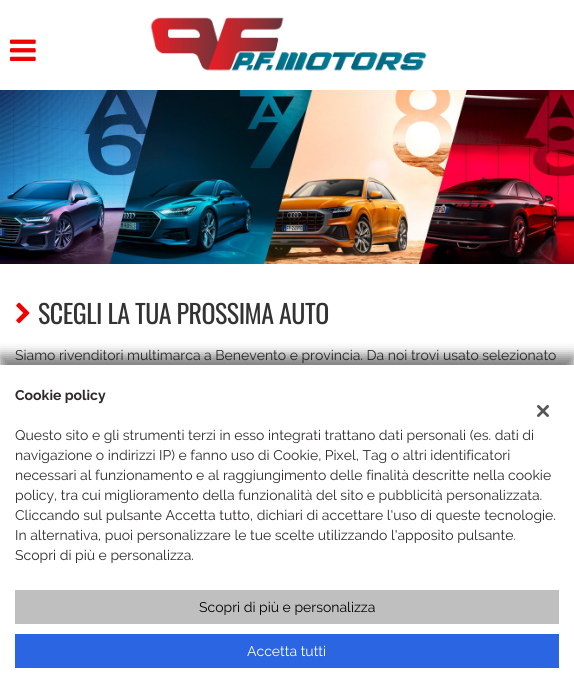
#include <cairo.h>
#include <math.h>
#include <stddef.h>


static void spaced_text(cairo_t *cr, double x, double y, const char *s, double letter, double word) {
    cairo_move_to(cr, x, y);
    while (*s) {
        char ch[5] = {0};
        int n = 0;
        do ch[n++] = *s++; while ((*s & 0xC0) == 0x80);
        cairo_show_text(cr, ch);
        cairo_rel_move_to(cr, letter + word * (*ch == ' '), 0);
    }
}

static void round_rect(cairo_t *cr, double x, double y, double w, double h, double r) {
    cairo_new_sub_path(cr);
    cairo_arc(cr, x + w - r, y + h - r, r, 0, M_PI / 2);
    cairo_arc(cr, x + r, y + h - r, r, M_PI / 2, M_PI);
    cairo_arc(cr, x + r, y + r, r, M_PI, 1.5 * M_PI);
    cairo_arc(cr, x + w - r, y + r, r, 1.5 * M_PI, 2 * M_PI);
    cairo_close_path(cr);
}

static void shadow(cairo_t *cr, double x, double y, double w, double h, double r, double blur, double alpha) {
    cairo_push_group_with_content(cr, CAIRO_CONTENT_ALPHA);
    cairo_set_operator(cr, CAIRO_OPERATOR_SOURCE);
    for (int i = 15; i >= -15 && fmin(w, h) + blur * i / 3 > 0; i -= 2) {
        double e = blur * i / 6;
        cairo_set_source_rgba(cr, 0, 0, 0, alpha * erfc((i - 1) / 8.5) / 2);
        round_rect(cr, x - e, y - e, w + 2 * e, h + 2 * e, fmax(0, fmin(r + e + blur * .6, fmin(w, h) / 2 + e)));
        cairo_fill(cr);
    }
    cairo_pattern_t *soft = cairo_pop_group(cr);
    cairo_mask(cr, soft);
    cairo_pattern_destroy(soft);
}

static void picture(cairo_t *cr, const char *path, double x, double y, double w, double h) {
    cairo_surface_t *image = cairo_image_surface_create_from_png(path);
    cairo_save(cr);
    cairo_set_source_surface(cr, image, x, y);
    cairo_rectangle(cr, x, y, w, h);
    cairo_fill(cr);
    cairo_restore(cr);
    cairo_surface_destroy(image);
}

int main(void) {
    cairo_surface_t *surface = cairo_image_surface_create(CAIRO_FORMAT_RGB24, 574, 698);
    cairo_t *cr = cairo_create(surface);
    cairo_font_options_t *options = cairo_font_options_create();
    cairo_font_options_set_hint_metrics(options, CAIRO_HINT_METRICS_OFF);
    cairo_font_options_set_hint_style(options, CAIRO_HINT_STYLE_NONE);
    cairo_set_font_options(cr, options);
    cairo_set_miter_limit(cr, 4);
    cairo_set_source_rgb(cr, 1, 1, 1);
    cairo_paint(cr);
    picture(cr, "img1.png", 10, 39, 26, 22);
    picture(cr, "img2.png", 150, 17, 277, 54);
    picture(cr, "img3.png", 0, 90, 574, 174);
    picture(cr, "img4.png", 16, 302, 14, 22);
    cairo_select_font_face(cr, "Oswald", CAIRO_FONT_SLANT_NORMAL, CAIRO_FONT_WEIGHT_NORMAL);
    cairo_set_font_size(cr, 26);
    cairo_set_source_rgb(cr, 0.2, 0.2, 0.2);
    spaced_text(cr, 38, 324, "SCEGLI LA TUA PROSSIMA AUTO", -0.5, 0);
    cairo_select_font_face(cr, "Raleway", CAIRO_FONT_SLANT_NORMAL, CAIRO_FONT_WEIGHT_NORMAL);
    cairo_set_font_size(cr, 14);
    cairo_move_to(cr, 15, 360);
    cairo_show_text(cr, "Siamo rivenditori multimarca a Benevento e provincia. Da noi trovi usato selezionato");
    cairo_set_source_rgb(cr, 0, 0, 0);
    shadow(cr, 0, 355, 574, 333, 0, 6, 0.5);
    cairo_set_source_rgb(cr, 1, 1, 1);
    cairo_rectangle(cr, 0, 365, 574, 333);
    cairo_fill(cr);
    cairo_select_font_face(cr, "Raleway", CAIRO_FONT_SLANT_NORMAL, CAIRO_FONT_WEIGHT_BOLD);
    cairo_set_source_rgb(cr, 0.169, 0.161, 0.161);
    cairo_move_to(cr, 15, 400);
    cairo_show_text(cr, "Cookie policy");
    cairo_select_font_face(cr, "Raleway", CAIRO_FONT_SLANT_NORMAL, CAIRO_FONT_WEIGHT_NORMAL);
    cairo_move_to(cr, 15, 440);
    cairo_show_text(cr, "Questo sito e gli strumenti terzi in esso integrati trattano dati personali (es. dati di");
    cairo_move_to(cr, 15, 460);
    cairo_show_text(cr, "navigazione o indirizzi IP) e fanno uso di Cookie, Pixel, Tag o altri identificatori");
    cairo_move_to(cr, 15, 480);
    cairo_show_text(cr, "necessari al funzionamento e al raggiungimento delle finalità descritte nella cookie");
    cairo_move_to(cr, 15, 500);
    cairo_show_text(cr, "policy, tra cui miglioramento della funzionalità del sito e pubblicità personalizzata.");
    cairo_move_to(cr, 15, 520);
    cairo_show_text(cr, "Cliccando sul pulsante Accetta tutto, dichiari di accettare l'uso di queste tecnologie.");
    cairo_move_to(cr, 15, 540);
    cairo_show_text(cr, "In alternativa, puoi personalizzare le tue scelte utilizzando l'apposito pulsante.");
    cairo_move_to(cr, 15, 560);
    cairo_show_text(cr, "Scopri di più e personalizza.");
    cairo_set_source_rgb(cr, 0.749, 0.749, 0.749);
    cairo_rectangle(cr, 15, 590, 544, 34);
    cairo_fill(cr);
    cairo_set_source_rgb(cr, 0, 0, 0);
    cairo_move_to(cr, 199, 612);
    cairo_show_text(cr, "Scopri di più e personalizza");
    cairo_set_source_rgb(cr, 0.173, 0.396, 0.882);
    cairo_rectangle(cr, 15, 634, 544, 34);
    cairo_fill(cr);
    cairo_set_source_rgb(cr, 1, 1, 1);
    cairo_move_to(cr, 247, 656);
    cairo_show_text(cr, "Accetta tutti");
    picture(cr, "img5.png", 537, 405, 12, 12);
    cairo_surface_write_to_png(surface, "page.png");
    cairo_font_options_destroy(options);
    cairo_destroy(cr);
    cairo_surface_destroy(surface);
    return 0;
}
